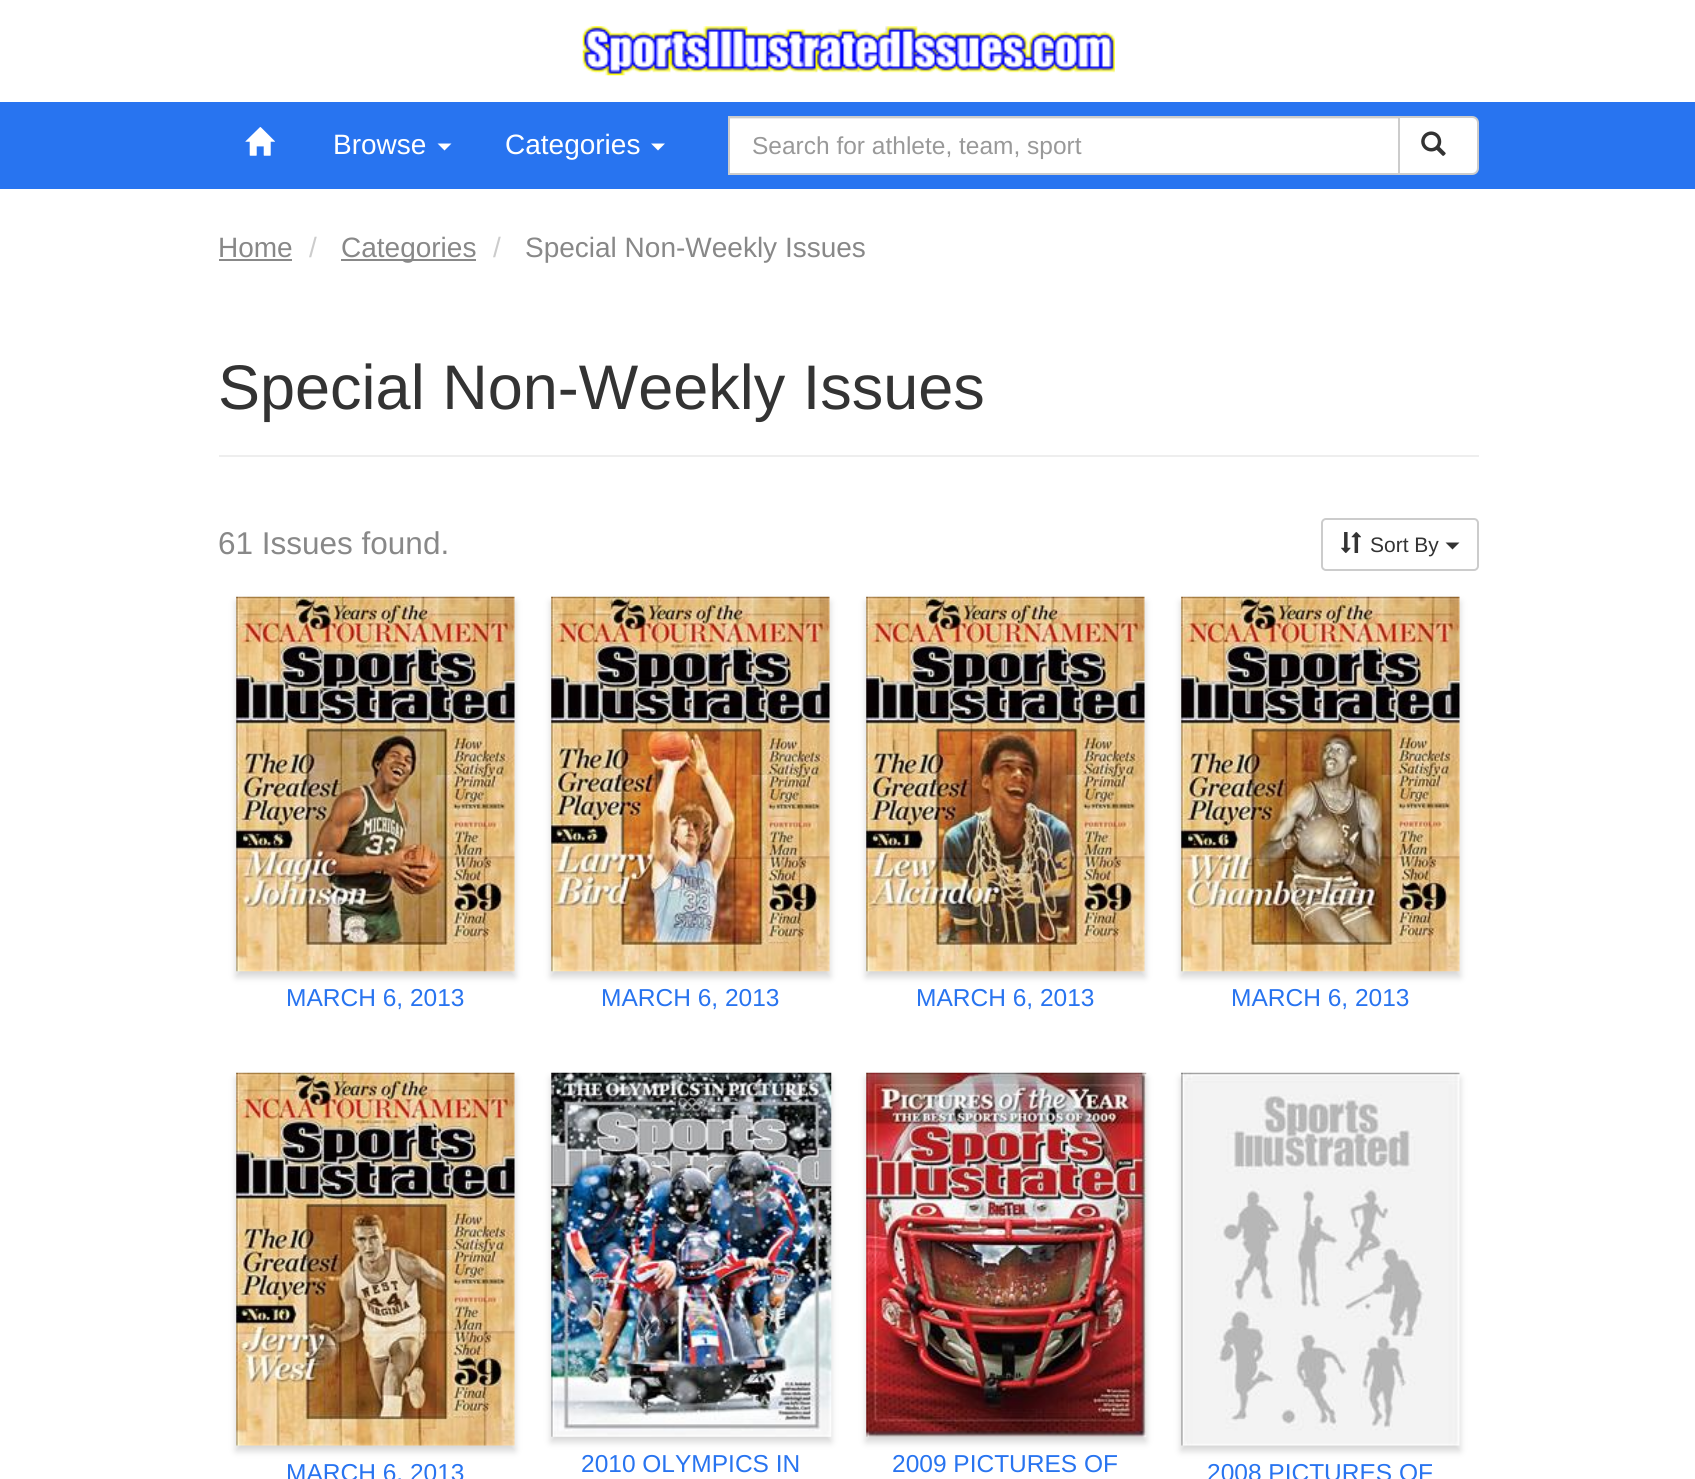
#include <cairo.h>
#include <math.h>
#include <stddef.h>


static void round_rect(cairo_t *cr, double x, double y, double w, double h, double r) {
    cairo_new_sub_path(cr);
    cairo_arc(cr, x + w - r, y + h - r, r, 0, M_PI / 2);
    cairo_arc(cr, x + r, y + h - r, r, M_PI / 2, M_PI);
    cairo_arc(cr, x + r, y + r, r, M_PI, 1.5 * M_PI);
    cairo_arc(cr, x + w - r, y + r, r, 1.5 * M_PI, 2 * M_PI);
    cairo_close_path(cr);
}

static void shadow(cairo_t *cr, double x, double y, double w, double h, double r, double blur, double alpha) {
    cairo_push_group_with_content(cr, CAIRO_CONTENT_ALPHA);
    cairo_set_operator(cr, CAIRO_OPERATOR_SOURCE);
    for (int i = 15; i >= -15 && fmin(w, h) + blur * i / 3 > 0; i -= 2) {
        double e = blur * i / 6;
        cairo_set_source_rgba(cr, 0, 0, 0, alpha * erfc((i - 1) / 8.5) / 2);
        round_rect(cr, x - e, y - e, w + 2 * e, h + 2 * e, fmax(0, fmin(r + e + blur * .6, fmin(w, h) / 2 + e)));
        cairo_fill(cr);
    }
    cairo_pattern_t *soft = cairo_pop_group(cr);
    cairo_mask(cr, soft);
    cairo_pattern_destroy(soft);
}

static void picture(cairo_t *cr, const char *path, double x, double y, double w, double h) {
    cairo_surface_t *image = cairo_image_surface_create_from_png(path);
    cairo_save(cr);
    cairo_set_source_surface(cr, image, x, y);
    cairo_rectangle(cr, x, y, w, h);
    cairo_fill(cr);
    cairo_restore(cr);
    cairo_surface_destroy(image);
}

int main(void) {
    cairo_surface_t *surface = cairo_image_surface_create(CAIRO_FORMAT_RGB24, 1695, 1479);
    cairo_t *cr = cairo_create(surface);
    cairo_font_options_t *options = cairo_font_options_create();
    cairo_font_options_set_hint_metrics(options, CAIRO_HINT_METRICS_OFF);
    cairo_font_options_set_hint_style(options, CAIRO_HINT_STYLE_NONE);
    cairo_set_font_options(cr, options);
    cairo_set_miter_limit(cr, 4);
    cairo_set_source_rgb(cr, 1, 1, 1);
    cairo_paint(cr);
    picture(cr, "img1.png", 582, 26, 533, 50);
    cairo_set_source_rgb(cr, 0.157, 0.455, 0.941);
    cairo_rectangle(cr, 0, 102, 1695, 87);
    cairo_fill(cr);
    picture(cr, "img2.png", 245, 127, 30, 29);
    cairo_select_font_face(cr, "Liberation Sans", CAIRO_FONT_SLANT_NORMAL, CAIRO_FONT_WEIGHT_NORMAL);
    cairo_set_font_size(cr, 28);
    cairo_set_source_rgb(cr, 1, 1, 1);
    cairo_move_to(cr, 333, 154);
    cairo_show_text(cr, "Browse");
    cairo_new_path(cr);
    cairo_move_to(cr, 437.5, 143.5);
    cairo_line_to(cr, 451.5, 143.5);
    cairo_line_to(cr, 444.5, 150.5);
    cairo_close_path(cr);
    cairo_fill(cr);
    cairo_move_to(cr, 505, 154);
    cairo_show_text(cr, "Categories");
    cairo_new_path(cr);
    cairo_move_to(cr, 651, 143.5);
    cairo_line_to(cr, 665, 143.5);
    cairo_line_to(cr, 658, 150.5);
    cairo_close_path(cr);
    cairo_fill(cr);
    cairo_rectangle(cr, 730, 119, 668, 54);
    cairo_fill(cr);
    cairo_set_source_rgb(cr, 0.925, 0.925, 0.925);
    cairo_rectangle(cr, 730, 118, 668, 1);
    cairo_fill(cr);
    cairo_rectangle(cr, 729, 117, 670, 57);
    cairo_set_source_rgb(cr, 0.8, 0.8, 0.8);
    cairo_stroke(cr);
    cairo_set_font_size(cr, 24.5);
    cairo_set_source_rgb(cr, 0.6, 0.6, 0.6);
    cairo_move_to(cr, 752, 154);
    cairo_show_text(cr, "Search for athlete, team, sport");
    cairo_set_source_rgb(cr, 1, 1, 1);
    cairo_new_path(cr);
    cairo_move_to(cr, 1399, 117);
    cairo_line_to(cr, 1472, 117);
    cairo_curve_to(cr, 1475.5, 117, 1478, 119.5, 1478, 123);
    cairo_line_to(cr, 1478, 168);
    cairo_curve_to(cr, 1478, 171.5, 1475.5, 174, 1472, 174);
    cairo_line_to(cr, 1399, 174);
    cairo_close_path(cr);
    cairo_fill_preserve(cr);
    cairo_set_source_rgb(cr, 0.8, 0.8, 0.8);
    cairo_stroke(cr);
    picture(cr, "img3.png", 1421, 131, 25, 25);
    cairo_set_font_size(cr, 28);
    cairo_set_source_rgb(cr, 0.533, 0.533, 0.533);
    cairo_move_to(cr, 218, 257);
    cairo_show_text(cr, "Home");
    cairo_rectangle(cr, 219, 259, 73, 2);
    cairo_fill(cr);
    cairo_set_source_rgb(cr, 0.8, 0.8, 0.8);
    cairo_move_to(cr, 309, 257);
    cairo_show_text(cr, "/");
    cairo_set_source_rgb(cr, 0.533, 0.533, 0.533);
    cairo_rectangle(cr, 341, 259, 135, 2);
    cairo_fill(cr);
    cairo_move_to(cr, 341, 257);
    cairo_show_text(cr, "Categories");
    cairo_set_source_rgb(cr, 0.8, 0.8, 0.8);
    cairo_move_to(cr, 493, 257);
    cairo_show_text(cr, "/");
    cairo_set_source_rgb(cr, 0.533, 0.533, 0.533);
    cairo_move_to(cr, 525, 257);
    cairo_show_text(cr, "Special Non-Weekly Issues");
    cairo_set_source_rgb(cr, 0.933, 0.933, 0.933);
    cairo_rectangle(cr, 219, 455, 1260, 2);
    cairo_fill(cr);
    cairo_set_font_size(cr, 63);
    cairo_set_source_rgb(cr, 0.2, 0.2, 0.2);
    cairo_move_to(cr, 218, 409);
    cairo_show_text(cr, "Special Non-Weekly Issues");
    cairo_set_font_size(cr, 31.5);
    cairo_set_source_rgb(cr, 0.533, 0.533, 0.533);
    cairo_move_to(cr, 218, 554);
    cairo_show_text(cr, "61 Issues found.");
    round_rect(cr, 1322, 519, 156, 51, 4);
    cairo_set_source_rgb(cr, 0.8, 0.8, 0.8);
    cairo_stroke(cr);
    picture(cr, "img4.png", 1341, 532, 20, 21);
    cairo_set_font_size(cr, 21);
    cairo_set_source_rgb(cr, 0.2, 0.2, 0.2);
    cairo_move_to(cr, 1370, 552);
    cairo_show_text(cr, "Sort By");
    cairo_new_path(cr);
    cairo_move_to(cr, 1445.5, 542.5);
    cairo_line_to(cr, 1459.5, 542.5);
    cairo_line_to(cr, 1452.5, 549.5);
    cairo_close_path(cr);
    cairo_fill(cr);
    cairo_set_source_rgb(cr, 0.471, 0.471, 0.471);
    shadow(cr, 236, 602, 279, 375, 0, 3.5, 0.3);
    picture(cr, "img5.png", 236, 596, 279, 376);
    cairo_set_font_size(cr, 24.5);
    cairo_set_source_rgb(cr, 0.157, 0.455, 0.941);
    cairo_move_to(cr, 286, 1006);
    cairo_show_text(cr, "MARCH 6, 2013");
    cairo_set_source_rgb(cr, 0.471, 0.471, 0.471);
    shadow(cr, 551, 602, 279, 375, 0, 3.5, 0.3);
    picture(cr, "img6.png", 551, 596, 279, 376);
    cairo_set_source_rgb(cr, 0.157, 0.455, 0.941);
    cairo_move_to(cr, 601, 1006);
    cairo_show_text(cr, "MARCH 6, 2013");
    cairo_set_source_rgb(cr, 0.471, 0.471, 0.471);
    shadow(cr, 866, 602, 279, 375, 0, 3.5, 0.3);
    picture(cr, "img7.png", 866, 596, 279, 376);
    cairo_set_source_rgb(cr, 0.157, 0.455, 0.941);
    cairo_move_to(cr, 916, 1006);
    cairo_show_text(cr, "MARCH 6, 2013");
    cairo_set_source_rgb(cr, 0.471, 0.471, 0.471);
    shadow(cr, 1181, 602, 279, 375, 0, 3.5, 0.3);
    picture(cr, "img8.png", 1181, 596, 279, 376);
    cairo_set_source_rgb(cr, 0.157, 0.455, 0.941);
    cairo_move_to(cr, 1231, 1006);
    cairo_show_text(cr, "MARCH 6, 2013");
    cairo_set_source_rgb(cr, 0.471, 0.471, 0.471);
    shadow(cr, 236, 1078, 279, 373, 0, 3.5, 0.3);
    picture(cr, "img9.png", 236, 1072, 279, 374);
    cairo_set_source_rgb(cr, 0.157, 0.455, 0.941);
    cairo_move_to(cr, 286, 1481);
    cairo_show_text(cr, "MARCH 6, 2013");
    cairo_set_source_rgb(cr, 0.471, 0.471, 0.471);
    shadow(cr, 551, 1078, 280, 364, 0, 3.5, 0.3);
    picture(cr, "img10.png", 551, 1072, 281, 365);
    cairo_set_source_rgb(cr, 0.157, 0.455, 0.941);
    cairo_move_to(cr, 581, 1472);
    cairo_show_text(cr, "2010 OLYMPICS IN");
    cairo_set_source_rgb(cr, 0.471, 0.471, 0.471);
    shadow(cr, 866, 1078, 280, 364, 0, 3.5, 0.3);
    picture(cr, "img11.png", 866, 1072, 281, 365);
    cairo_set_source_rgb(cr, 0.157, 0.455, 0.941);
    cairo_move_to(cr, 892, 1472);
    cairo_show_text(cr, "2009 PICTURES OF");
    cairo_set_source_rgb(cr, 0.471, 0.471, 0.471);
    shadow(cr, 1181, 1078, 279, 373, 0, 3.5, 0.3);
    picture(cr, "img12.png", 1181, 1072, 279, 374);
    cairo_set_source_rgb(cr, 0.157, 0.455, 0.941);
    cairo_move_to(cr, 1207, 1481);
    cairo_show_text(cr, "2008 PICTURES OF");
    cairo_surface_write_to_png(surface, "page.png");
    cairo_font_options_destroy(options);
    cairo_destroy(cr);
    cairo_surface_destroy(surface);
    return 0;
}
